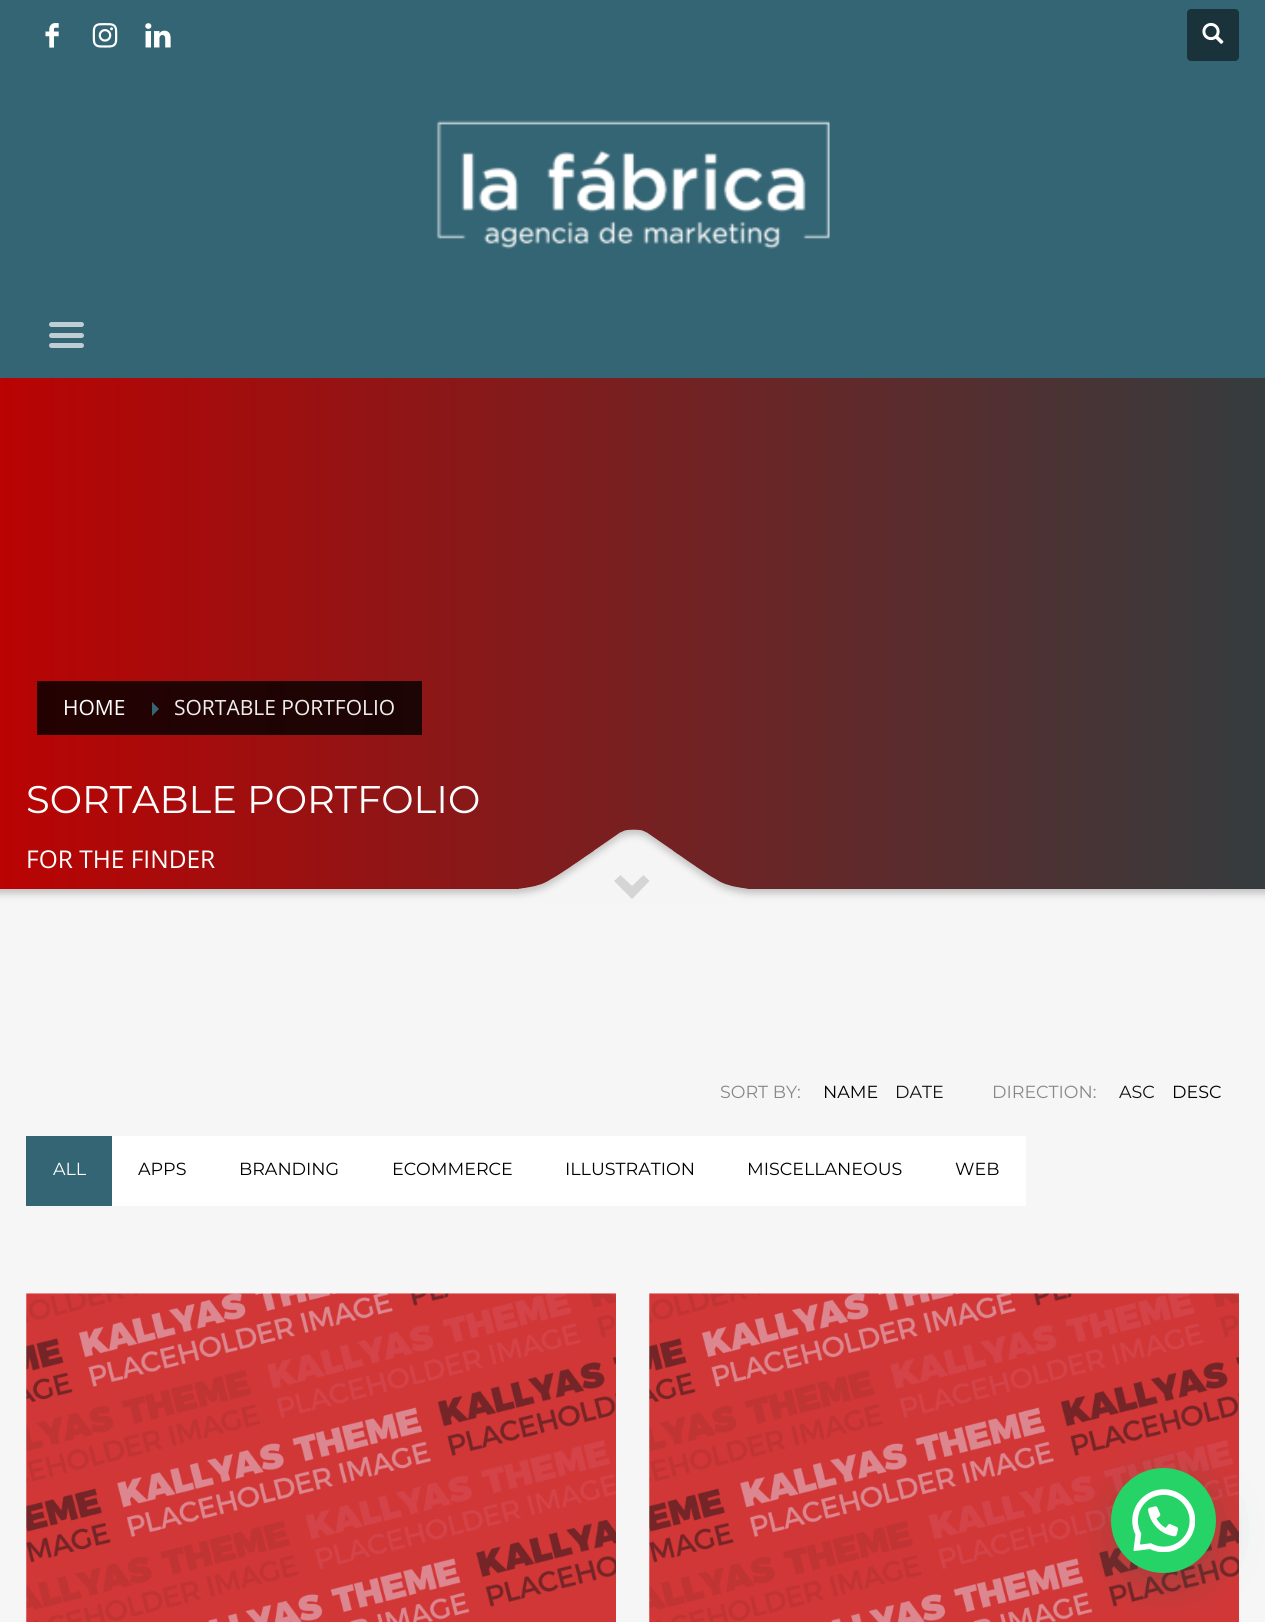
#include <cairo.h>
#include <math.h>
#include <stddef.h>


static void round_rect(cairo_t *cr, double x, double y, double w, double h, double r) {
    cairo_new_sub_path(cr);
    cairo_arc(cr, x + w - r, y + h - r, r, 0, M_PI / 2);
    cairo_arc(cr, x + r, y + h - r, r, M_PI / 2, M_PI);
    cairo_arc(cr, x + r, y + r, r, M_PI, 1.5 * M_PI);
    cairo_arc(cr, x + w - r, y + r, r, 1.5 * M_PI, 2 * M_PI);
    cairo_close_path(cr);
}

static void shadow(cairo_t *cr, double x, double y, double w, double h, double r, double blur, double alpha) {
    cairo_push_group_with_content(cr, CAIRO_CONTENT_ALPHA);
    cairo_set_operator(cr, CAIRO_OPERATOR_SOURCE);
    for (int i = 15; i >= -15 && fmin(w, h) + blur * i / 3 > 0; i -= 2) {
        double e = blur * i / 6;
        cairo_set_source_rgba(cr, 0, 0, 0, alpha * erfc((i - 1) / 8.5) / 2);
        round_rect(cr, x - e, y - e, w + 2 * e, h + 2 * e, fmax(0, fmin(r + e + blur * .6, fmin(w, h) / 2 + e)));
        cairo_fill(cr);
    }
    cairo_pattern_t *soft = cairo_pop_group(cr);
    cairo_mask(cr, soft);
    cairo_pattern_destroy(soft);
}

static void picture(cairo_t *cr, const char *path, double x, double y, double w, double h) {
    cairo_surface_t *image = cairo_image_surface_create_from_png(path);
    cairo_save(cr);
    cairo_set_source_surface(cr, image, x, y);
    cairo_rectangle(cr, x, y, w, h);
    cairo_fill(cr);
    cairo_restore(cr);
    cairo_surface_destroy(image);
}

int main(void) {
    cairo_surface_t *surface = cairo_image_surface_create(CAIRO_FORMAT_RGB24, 1265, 1622);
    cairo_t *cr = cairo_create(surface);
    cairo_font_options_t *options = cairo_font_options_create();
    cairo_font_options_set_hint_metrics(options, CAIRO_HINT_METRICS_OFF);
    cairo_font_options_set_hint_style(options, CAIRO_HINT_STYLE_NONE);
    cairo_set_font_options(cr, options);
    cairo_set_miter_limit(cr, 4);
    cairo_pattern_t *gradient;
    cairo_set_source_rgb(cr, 0.961, 0.961, 0.961);
    cairo_paint(cr);
    cairo_set_source_rgb(cr, 0.204, 0.396, 0.455);
    cairo_rectangle(cr, 0, 0, 1265, 378);
    cairo_fill(cr);
    picture(cr, "img1.png", 45, 23, 14, 25);
    picture(cr, "img2.png", 92, 23, 26, 25);
    picture(cr, "img3.png", 145, 23, 26, 25);
    cairo_set_source_rgb(cr, 0.102, 0.2, 0.227);
    round_rect(cr, 1187, 9, 52, 52, 4);
    cairo_fill(cr);
    picture(cr, "img4.png", 1202, 22, 22, 22);
    picture(cr, "img5.png", 436, 120, 394, 129);
    cairo_set_source_rgb(cr, 0.745, 0.808, 0.824);
    round_rect(cr, 49, 322, 35, 5, 2.5);
    cairo_fill(cr);
    round_rect(cr, 49, 333, 35, 5, 2.5);
    cairo_fill(cr);
    round_rect(cr, 49, 343, 35, 5, 2.5);
    cairo_fill(cr);
    gradient = cairo_pattern_create_linear(0, 641, 1265, 641);
    cairo_pattern_add_color_stop_rgba(gradient, 0, 0.729, 0.012, 0.012, 1);
    cairo_pattern_add_color_stop_rgba(gradient, 1, 0.208, 0.235, 0.243, 1);
    cairo_set_source(cr, gradient);
    cairo_pattern_destroy(gradient);
    cairo_rectangle(cr, 0, 378, 1265, 511);
    cairo_fill(cr);
    gradient = cairo_pattern_create_linear(0, 641, 1265, 641);
    cairo_pattern_add_color_stop_rgba(gradient, 0, 0.145, 0.004, 0.004, 1);
    cairo_pattern_add_color_stop_rgba(gradient, 1, 0.043, 0.047, 0.047, 1);
    cairo_set_source(cr, gradient);
    cairo_pattern_destroy(gradient);
    cairo_rectangle(cr, 135, 681, 287, 54);
    cairo_fill(cr);
    cairo_rectangle(cr, 37, 681, 98, 54);
    cairo_fill(cr);
    cairo_select_font_face(cr, "Open Sans", CAIRO_FONT_SLANT_NORMAL, CAIRO_FONT_WEIGHT_NORMAL);
    cairo_set_font_size(cr, 21);
    cairo_set_source_rgb(cr, 1, 1, 1);
    cairo_move_to(cr, 63, 715);
    cairo_show_text(cr, "HOME");
    cairo_set_source_rgb(cr, 0.204, 0.396, 0.455);
    cairo_new_path(cr);
    cairo_move_to(cr, 152, 716);
    cairo_line_to(cr, 152, 702);
    cairo_line_to(cr, 159, 709);
    cairo_close_path(cr);
    cairo_fill(cr);
    cairo_set_source_rgb(cr, 0.933, 0.933, 0.933);
    cairo_move_to(cr, 174, 715);
    cairo_show_text(cr, "SORTABLE PORTFOLIO");
    cairo_select_font_face(cr, "Montserrat", CAIRO_FONT_SLANT_NORMAL, CAIRO_FONT_WEIGHT_NORMAL);
    cairo_set_font_size(cr, 38.5);
    cairo_set_source_rgb(cr, 1, 1, 1);
    cairo_move_to(cr, 26, 813);
    cairo_show_text(cr, "SORTABLE PORTFOLIO");
    cairo_select_font_face(cr, "Open Sans", CAIRO_FONT_SLANT_NORMAL, CAIRO_FONT_WEIGHT_NORMAL);
    cairo_set_font_size(cr, 24.5);
    cairo_move_to(cr, 26, 868);
    cairo_show_text(cr, "FOR THE FINDER");
    picture(cr, "img6.png", 0, 829, 1265, 74);
    cairo_set_source_rgb(cr, 0.835, 0.835, 0.835);
    cairo_new_path(cr);
    cairo_move_to(cr, 649.5, 881);
    cairo_line_to(cr, 632, 899);
    cairo_line_to(cr, 614, 881);
    cairo_line_to(cr, 620.5, 875);
    cairo_line_to(cr, 632, 886);
    cairo_line_to(cr, 643.5, 875);
    cairo_close_path(cr);
    cairo_fill(cr);
    cairo_select_font_face(cr, "Montserrat", CAIRO_FONT_SLANT_NORMAL, CAIRO_FONT_WEIGHT_NORMAL);
    cairo_set_font_size(cr, 17.5);
    cairo_set_source_rgb(cr, 0.533, 0.533, 0.533);
    cairo_move_to(cr, 720, 1098);
    cairo_show_text(cr, "SORT BY:");
    cairo_set_source_rgb(cr, 0, 0, 0);
    cairo_move_to(cr, 823, 1098);
    cairo_show_text(cr, "NAME");
    cairo_set_source_rgb(cr, 0.075, 0.075, 0.075);
    cairo_move_to(cr, 895, 1098);
    cairo_show_text(cr, "DATE");
    cairo_set_source_rgb(cr, 0.533, 0.533, 0.533);
    cairo_move_to(cr, 992, 1098);
    cairo_show_text(cr, "DIRECTION:");
    cairo_set_source_rgb(cr, 0.075, 0.075, 0.075);
    cairo_move_to(cr, 1119, 1098);
    cairo_show_text(cr, "ASC");
    cairo_set_source_rgb(cr, 0, 0, 0);
    cairo_move_to(cr, 1172, 1098);
    cairo_show_text(cr, "DESC");
    cairo_set_source_rgb(cr, 0.204, 0.396, 0.455);
    cairo_rectangle(cr, 26, 1136, 86, 70);
    cairo_fill(cr);
    cairo_set_source_rgb(cr, 1, 1, 1);
    cairo_move_to(cr, 53, 1175);
    cairo_show_text(cr, "ALL");
    cairo_rectangle(cr, 112, 1136, 914, 70);
    cairo_fill(cr);
    cairo_set_source_rgb(cr, 0, 0, 0);
    cairo_move_to(cr, 138, 1175);
    cairo_show_text(cr, "APPS");
    cairo_move_to(cr, 239, 1175);
    cairo_show_text(cr, "BRANDING");
    cairo_move_to(cr, 392, 1175);
    cairo_show_text(cr, "ECOMMERCE");
    cairo_move_to(cr, 565, 1175);
    cairo_show_text(cr, "ILLUSTRATION");
    cairo_move_to(cr, 747, 1175);
    cairo_show_text(cr, "MISCELLANEOUS");
    cairo_move_to(cr, 955, 1175);
    cairo_show_text(cr, "WEB");
    cairo_set_source_rgb(cr, 0.996, 0.996, 0.996);
    cairo_rectangle(cr, 26, 1293, 590, 329);
    cairo_fill(cr);
    picture(cr, "img7.png", 26, 1293, 590, 329);
    cairo_rectangle(cr, 649, 1293, 590, 329);
    cairo_fill(cr);
    picture(cr, "img7.png", 649, 1293, 590, 329);
    cairo_set_source_rgb(cr, 0.027, 0.369, 0.329);
    shadow(cr, 1113, 1479, 105, 105, 52.5, 21, 0.24);
    cairo_set_source_rgb(cr, 0.145, 0.827, 0.4);
    cairo_arc(cr, 1163.5, 1520.5, 52.5, 0, 2 * M_PI);
    cairo_fill(cr);
    picture(cr, "img8.png", 1132, 1489, 63, 63);
    cairo_surface_write_to_png(surface, "page.png");
    cairo_font_options_destroy(options);
    cairo_destroy(cr);
    cairo_surface_destroy(surface);
    return 0;
}
